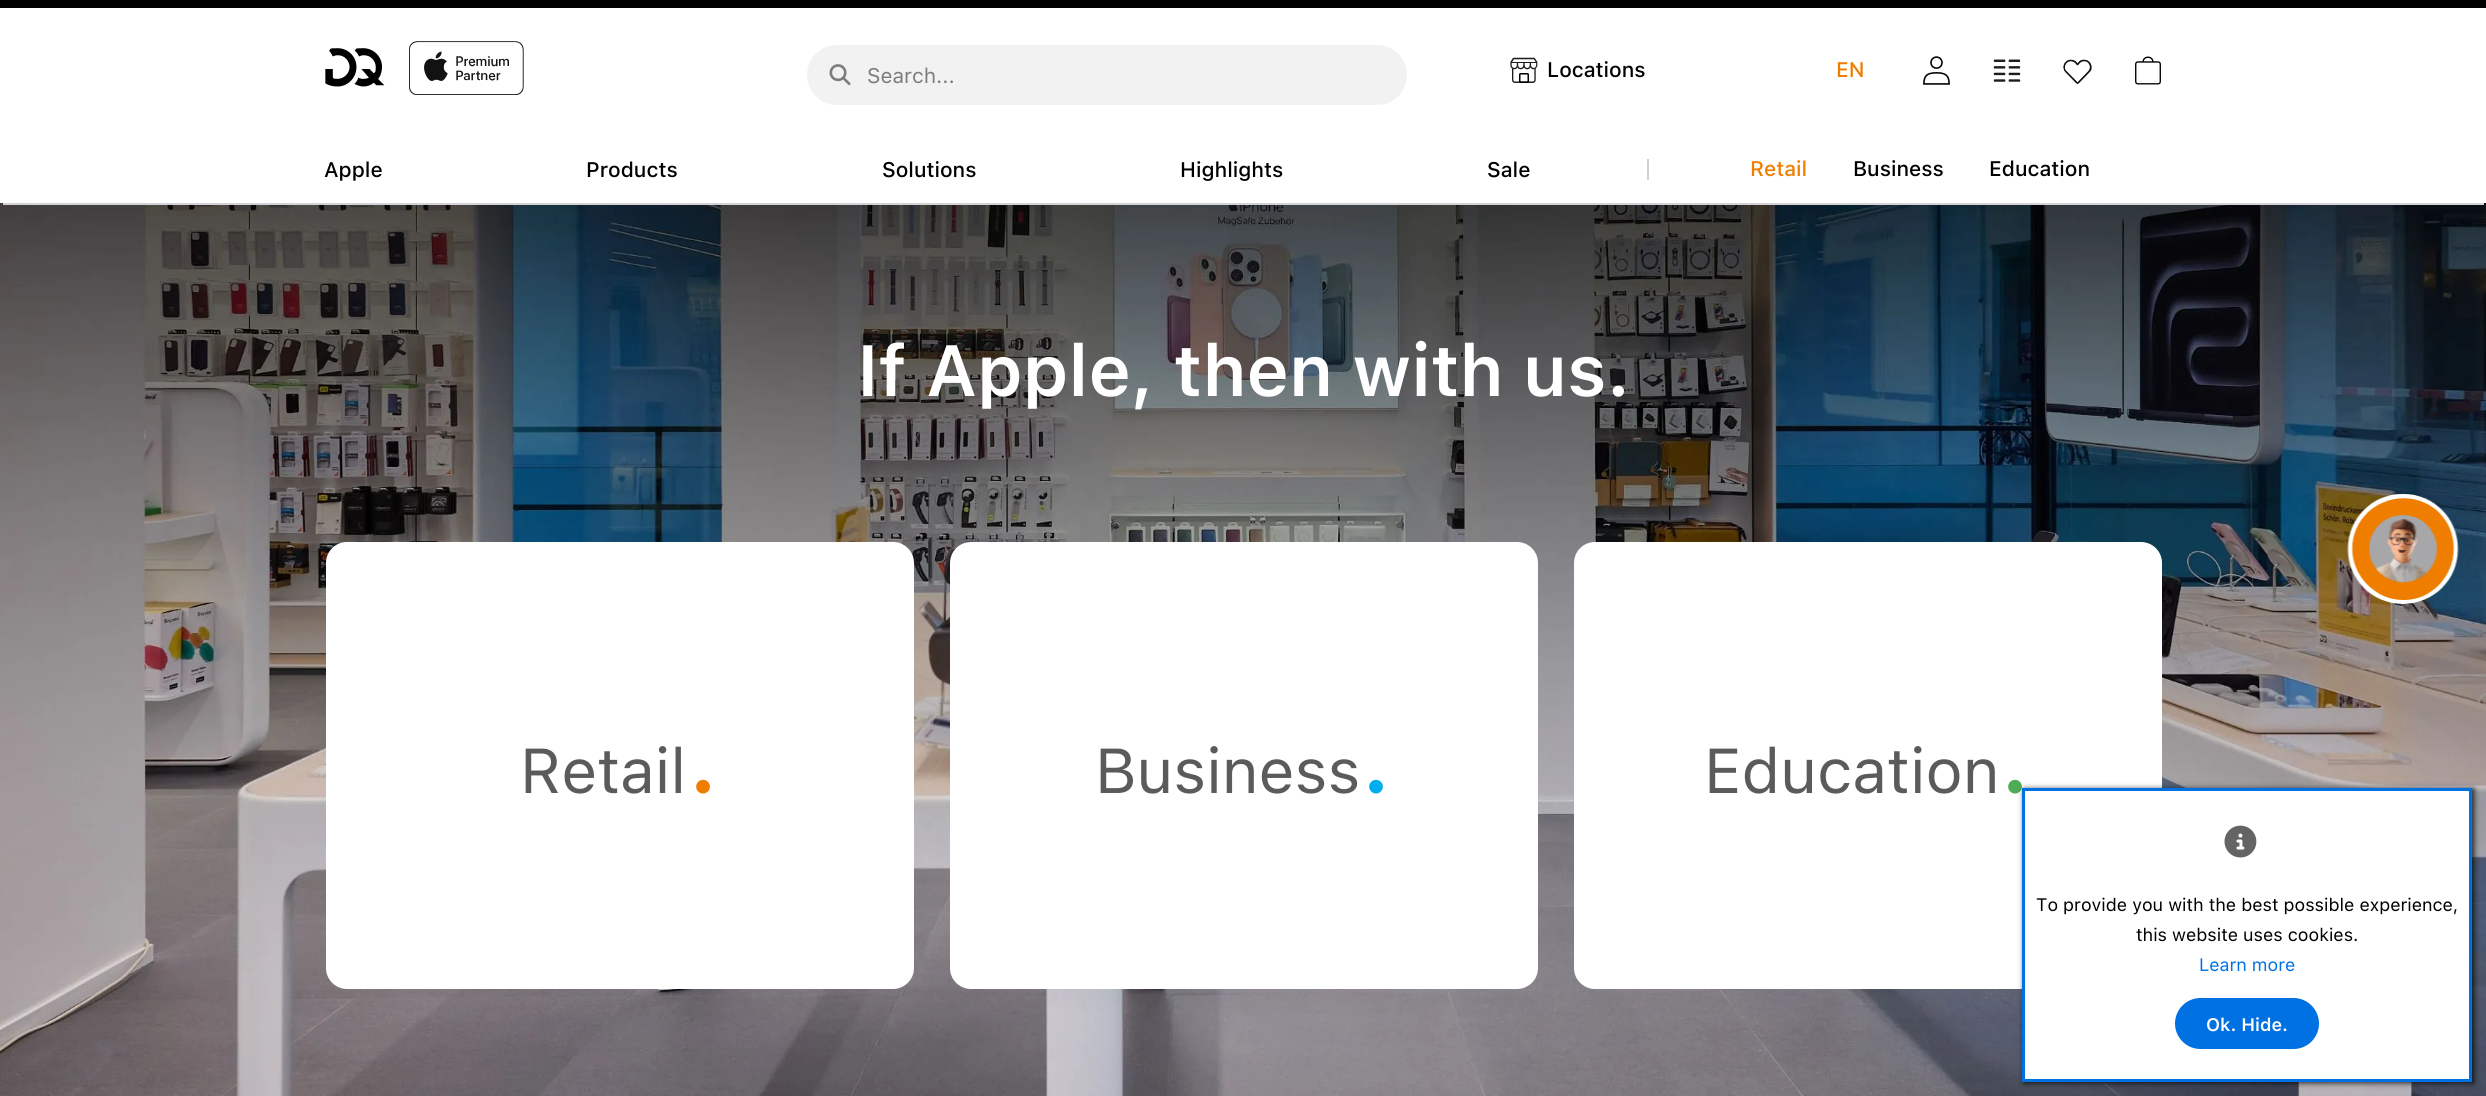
#include <cairo.h>
#include <math.h>
#include <stddef.h>


static void round_rect(cairo_t *cr, double x, double y, double w, double h, double r) {
    cairo_new_sub_path(cr);
    cairo_arc(cr, x + w - r, y + h - r, r, 0, M_PI / 2);
    cairo_arc(cr, x + r, y + h - r, r, M_PI / 2, M_PI);
    cairo_arc(cr, x + r, y + r, r, M_PI, 1.5 * M_PI);
    cairo_arc(cr, x + w - r, y + r, r, 1.5 * M_PI, 2 * M_PI);
    cairo_close_path(cr);
}

static void shadow(cairo_t *cr, double x, double y, double w, double h, double r, double blur, double alpha) {
    cairo_push_group_with_content(cr, CAIRO_CONTENT_ALPHA);
    cairo_set_operator(cr, CAIRO_OPERATOR_SOURCE);
    for (int i = 15; i >= -15 && fmin(w, h) + blur * i / 3 > 0; i -= 2) {
        double e = blur * i / 6;
        cairo_set_source_rgba(cr, 0, 0, 0, alpha * erfc((i - 1) / 8.5) / 2);
        round_rect(cr, x - e, y - e, w + 2 * e, h + 2 * e, fmax(0, fmin(r + e + blur * .6, fmin(w, h) / 2 + e)));
        cairo_fill(cr);
    }
    cairo_pattern_t *soft = cairo_pop_group(cr);
    cairo_mask(cr, soft);
    cairo_pattern_destroy(soft);
}

static void picture(cairo_t *cr, const char *path, double x, double y, double w, double h) {
    cairo_surface_t *image = cairo_image_surface_create_from_png(path);
    cairo_save(cr);
    cairo_set_source_surface(cr, image, x, y);
    cairo_rectangle(cr, x, y, w, h);
    cairo_fill(cr);
    cairo_restore(cr);
    cairo_surface_destroy(image);
}

int main(void) {
    cairo_surface_t *surface = cairo_image_surface_create(CAIRO_FORMAT_RGB24, 2486, 1096);
    cairo_t *cr = cairo_create(surface);
    cairo_font_options_t *options = cairo_font_options_create();
    cairo_font_options_set_hint_metrics(options, CAIRO_HINT_METRICS_OFF);
    cairo_font_options_set_hint_style(options, CAIRO_HINT_STYLE_NONE);
    cairo_set_font_options(cr, options);
    cairo_set_miter_limit(cr, 4);
    cairo_set_source_rgb(cr, 1, 1, 1);
    cairo_paint(cr);
    cairo_set_source_rgb(cr, 0, 0, 0);
    cairo_rectangle(cr, 0, 0, 2486, 8);
    cairo_fill(cr);
    picture(cr, "img8.png", 0, 203, 2486, 893);
    cairo_set_source_rgb(cr, 0.824, 0.824, 0.843);
    cairo_rectangle(cr, 3, 203, 2481, 2);
    cairo_fill(cr);
    picture(cr, "img1.png", 325, 41, 199, 54);
    cairo_set_source_rgb(cr, 0.949, 0.949, 0.949);
    round_rect(cr, 807, 45, 600, 60, 30);
    cairo_fill(cr);
    picture(cr, "img2.png", 829, 64, 22, 22);
    cairo_select_font_face(cr, "SF Pro Text", CAIRO_FONT_SLANT_NORMAL, CAIRO_FONT_WEIGHT_NORMAL);
    cairo_set_font_size(cr, 21);
    cairo_set_source_rgb(cr, 0.49, 0.49, 0.49);
    cairo_move_to(cr, 867, 83);
    cairo_show_text(cr, "Search...");
    picture(cr, "img3.png", 1510, 57, 28, 26);
    cairo_select_font_face(cr, "SF Pro Text Medium", CAIRO_FONT_SLANT_NORMAL, CAIRO_FONT_WEIGHT_NORMAL);
    cairo_set_source_rgb(cr, 0, 0, 0);
    cairo_move_to(cr, 1547, 77);
    cairo_show_text(cr, "Locations");
    cairo_set_source_rgb(cr, 0.937, 0.49, 0);
    cairo_move_to(cr, 1836, 77);
    cairo_show_text(cr, "EN");
    picture(cr, "img4.png", 1923, 56, 27, 29);
    picture(cr, "img5.png", 1993, 59, 28, 23);
    picture(cr, "img6.png", 2063, 59, 29, 25);
    picture(cr, "img7.png", 2135, 56, 26, 29);
    cairo_set_source_rgb(cr, 0, 0, 0);
    cairo_move_to(cr, 324, 177);
    cairo_show_text(cr, "Apple");
    cairo_move_to(cr, 586, 177);
    cairo_show_text(cr, "Products");
    cairo_move_to(cr, 882, 177);
    cairo_show_text(cr, "Solutions");
    cairo_move_to(cr, 1180, 177);
    cairo_show_text(cr, "Highlights");
    cairo_move_to(cr, 1487, 177);
    cairo_show_text(cr, "Sale");
    cairo_set_source_rgb(cr, 0.816, 0.816, 0.816);
    cairo_rectangle(cr, 1647, 159, 2, 21);
    cairo_fill(cr);
    cairo_set_source_rgb(cr, 0.937, 0.49, 0);
    cairo_move_to(cr, 1750, 176);
    cairo_show_text(cr, "Retail");
    cairo_set_source_rgb(cr, 0, 0, 0);
    cairo_move_to(cr, 1853, 176);
    cairo_show_text(cr, "Business");
    cairo_move_to(cr, 1989, 176);
    cairo_show_text(cr, "Education");
    cairo_select_font_face(cr, "SF Pro Text SemiBold", CAIRO_FONT_SLANT_NORMAL, CAIRO_FONT_WEIGHT_NORMAL);
    cairo_set_font_size(cr, 72);
    cairo_set_source_rgb(cr, 1, 1, 1);
    cairo_move_to(cr, 857, 396);
    cairo_show_text(cr, "If Apple, then with us.");
    round_rect(cr, 326, 542, 588, 447, 21);
    cairo_fill(cr);
    cairo_select_font_face(cr, "SF Pro Text", CAIRO_FONT_SLANT_NORMAL, CAIRO_FONT_WEIGHT_NORMAL);
    cairo_set_font_size(cr, 63);
    cairo_set_source_rgb(cr, 0.357, 0.357, 0.357);
    cairo_move_to(cr, 520, 793);
    cairo_show_text(cr, "Retail");
    cairo_set_font_size(cr, 108);
    cairo_set_source_rgb(cr, 0.937, 0.49, 0);
    cairo_move_to(cr, 687, 793);
    cairo_show_text(cr, ".");
    cairo_set_source_rgb(cr, 1, 1, 1);
    round_rect(cr, 950, 542, 588, 447, 21);
    cairo_fill(cr);
    cairo_set_font_size(cr, 63);
    cairo_set_source_rgb(cr, 0.357, 0.357, 0.357);
    cairo_move_to(cr, 1095, 793);
    cairo_show_text(cr, "Business");
    cairo_set_font_size(cr, 108);
    cairo_set_source_rgb(cr, 0, 0.682, 0.937);
    cairo_move_to(cr, 1360, 793);
    cairo_show_text(cr, ".");
    cairo_set_source_rgb(cr, 1, 1, 1);
    round_rect(cr, 1574, 542, 588, 447, 21);
    cairo_fill(cr);
    cairo_set_font_size(cr, 63);
    cairo_set_source_rgb(cr, 0.357, 0.357, 0.357);
    cairo_move_to(cr, 1704, 793);
    cairo_show_text(cr, "Education");
    cairo_set_font_size(cr, 108);
    cairo_set_source_rgb(cr, 0.306, 0.675, 0.341);
    cairo_move_to(cr, 1999, 793);
    cairo_show_text(cr, ".");
    picture(cr, "img9.png", 2347, 494, 112, 110);
    cairo_set_source_rgb(cr, 0, 0, 0);
    shadow(cr, 2024, 789, 450, 294, 0, 3, 0.8);
    cairo_set_source_rgb(cr, 1, 1, 1);
    cairo_rectangle(cr, 2023.5, 789.5, 447, 291);
    cairo_fill_preserve(cr);
    cairo_set_source_rgb(cr, 0, 0.443, 0.89);
    cairo_set_line_width(cr, 3);
    cairo_stroke(cr);
    picture(cr, "img10.png", 2224, 825, 33, 33);
    cairo_set_font_size(cr, 18);
    cairo_set_source_rgb(cr, 0, 0, 0);
    cairo_move_to(cr, 2036, 911);
    cairo_show_text(cr, "To provide you with the best possible experience,");
    cairo_move_to(cr, 2136, 941);
    cairo_show_text(cr, "this website uses cookies.");
    cairo_set_source_rgb(cr, 0, 0.443, 0.89);
    cairo_move_to(cr, 2199, 971);
    cairo_show_text(cr, "Learn more");
    round_rect(cr, 2176, 999, 142, 49, 24.5);
    cairo_fill_preserve(cr);
    cairo_set_line_width(cr, 2);
    cairo_stroke(cr);
    cairo_select_font_face(cr, "SF Pro Text SemiBold", CAIRO_FONT_SLANT_NORMAL, CAIRO_FONT_WEIGHT_NORMAL);
    cairo_set_source_rgb(cr, 1, 1, 1);
    cairo_move_to(cr, 2206, 1031);
    cairo_show_text(cr, "Ok. Hide.");
    cairo_surface_write_to_png(surface, "page.png");
    cairo_font_options_destroy(options);
    cairo_destroy(cr);
    cairo_surface_destroy(surface);
    return 0;
}
